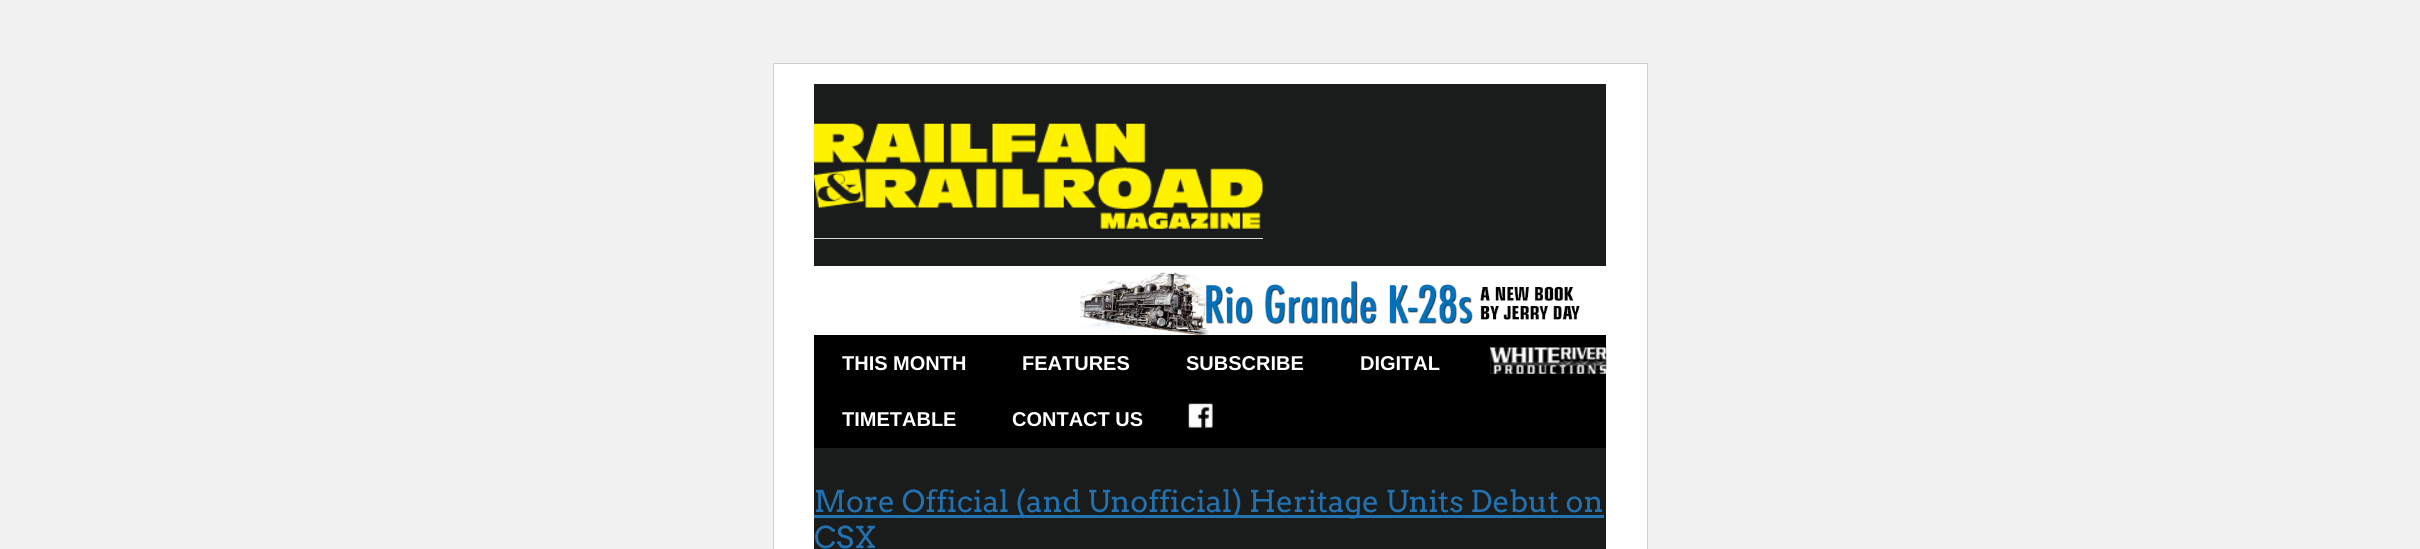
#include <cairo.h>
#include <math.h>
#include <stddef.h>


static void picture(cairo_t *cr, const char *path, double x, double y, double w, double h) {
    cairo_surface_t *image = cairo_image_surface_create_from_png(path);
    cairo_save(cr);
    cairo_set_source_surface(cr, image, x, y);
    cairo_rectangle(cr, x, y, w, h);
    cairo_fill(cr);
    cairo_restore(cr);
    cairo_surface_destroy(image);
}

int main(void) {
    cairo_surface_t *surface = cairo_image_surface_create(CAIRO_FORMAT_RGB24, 2420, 549);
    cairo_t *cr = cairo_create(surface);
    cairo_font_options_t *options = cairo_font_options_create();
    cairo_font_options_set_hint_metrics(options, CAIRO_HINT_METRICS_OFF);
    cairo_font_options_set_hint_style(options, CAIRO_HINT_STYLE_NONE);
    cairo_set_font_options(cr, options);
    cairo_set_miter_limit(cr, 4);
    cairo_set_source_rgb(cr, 0.945, 0.945, 0.945);
    cairo_paint(cr);
    cairo_set_source_rgb(cr, 1, 1, 1);
    cairo_rectangle(cr, 773.5, 63.5, 874, 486);
    cairo_fill_preserve(cr);
    cairo_set_source_rgb(cr, 0.8, 0.816, 0.831);
    cairo_set_line_width(cr, 1);
    cairo_stroke(cr);
    cairo_set_source_rgb(cr, 0.102, 0.11, 0.106);
    cairo_rectangle(cr, 814, 84, 792, 182);
    cairo_fill(cr);
    cairo_set_source_rgb(cr, 0.855, 0.855, 0.855);
    cairo_rectangle(cr, 814, 238, 449, 1);
    cairo_fill(cr);
    picture(cr, "img1.png", 813, 123, 450, 106);
    picture(cr, "img2.png", 1080, 272, 500, 63);
    cairo_set_source_rgb(cr, 0, 0, 0);
    cairo_rectangle(cr, 814, 335, 792, 113);
    cairo_fill(cr);
    cairo_select_font_face(cr, "Liberation Sans", CAIRO_FONT_SLANT_NORMAL, CAIRO_FONT_WEIGHT_BOLD);
    cairo_set_font_size(cr, 20);
    cairo_set_source_rgb(cr, 1, 1, 1);
    cairo_move_to(cr, 842, 370);
    cairo_show_text(cr, "THIS MONTH");
    cairo_move_to(cr, 1022, 370);
    cairo_show_text(cr, "FEATURES");
    cairo_move_to(cr, 1186, 370);
    cairo_show_text(cr, "SUBSCRIBE");
    cairo_move_to(cr, 1360, 370);
    cairo_show_text(cr, "DIGITAL");
    cairo_move_to(cr, 842, 426);
    cairo_show_text(cr, "TIMETABLE");
    cairo_move_to(cr, 1012, 426);
    cairo_show_text(cr, "CONTACT US");
    picture(cr, "img3.png", 1188, 403, 25, 25);
    picture(cr, "img4.png", 1490, 347, 117, 27);
    cairo_set_source_rgb(cr, 0.102, 0.11, 0.106);
    cairo_rectangle(cr, 814, 448, 792, 101);
    cairo_fill(cr);
    cairo_set_source_rgb(cr, 0.133, 0.443, 0.694);
    cairo_rectangle(cr, 814, 515, 790, 3);
    cairo_fill(cr);
    cairo_select_font_face(cr, "Arvo", CAIRO_FONT_SLANT_NORMAL, CAIRO_FONT_WEIGHT_NORMAL);
    cairo_set_font_size(cr, 30);
    cairo_move_to(cr, 814, 512);
    cairo_show_text(cr, "More Official (and Unofficial) Heritage Units Debut on");
    cairo_move_to(cr, 814, 548);
    cairo_show_text(cr, "CSX");
    cairo_surface_write_to_png(surface, "page.png");
    cairo_font_options_destroy(options);
    cairo_destroy(cr);
    cairo_surface_destroy(surface);
    return 0;
}
